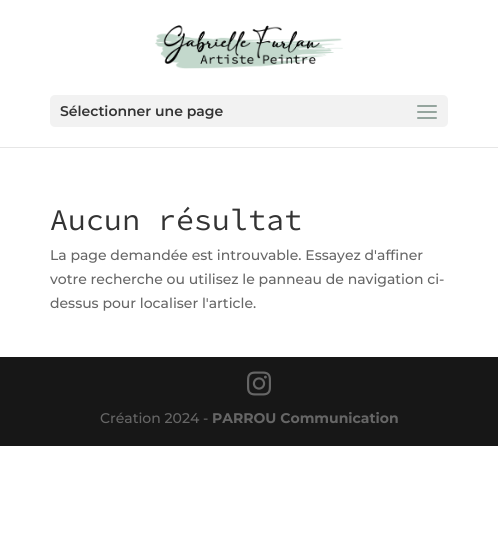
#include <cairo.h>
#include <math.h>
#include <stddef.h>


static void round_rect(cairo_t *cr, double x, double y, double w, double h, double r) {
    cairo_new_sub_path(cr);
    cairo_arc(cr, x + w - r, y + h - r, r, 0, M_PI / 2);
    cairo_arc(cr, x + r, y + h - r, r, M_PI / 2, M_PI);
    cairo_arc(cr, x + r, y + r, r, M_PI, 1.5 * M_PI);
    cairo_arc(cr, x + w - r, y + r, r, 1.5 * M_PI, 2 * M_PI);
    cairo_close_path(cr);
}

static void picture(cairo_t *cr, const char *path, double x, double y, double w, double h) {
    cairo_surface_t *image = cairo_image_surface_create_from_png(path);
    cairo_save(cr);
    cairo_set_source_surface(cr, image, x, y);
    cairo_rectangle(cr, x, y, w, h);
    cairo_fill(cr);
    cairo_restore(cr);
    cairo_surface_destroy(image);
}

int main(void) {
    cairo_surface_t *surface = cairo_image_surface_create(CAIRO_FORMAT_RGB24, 498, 543);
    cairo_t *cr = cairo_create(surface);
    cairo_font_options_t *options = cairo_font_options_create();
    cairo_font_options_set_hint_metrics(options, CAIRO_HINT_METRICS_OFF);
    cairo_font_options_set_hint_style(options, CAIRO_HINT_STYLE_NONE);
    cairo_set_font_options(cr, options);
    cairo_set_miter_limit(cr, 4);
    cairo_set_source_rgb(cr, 1, 1, 1);
    cairo_paint(cr);
    cairo_set_source_rgb(cr, 0.902, 0.902, 0.902);
    cairo_rectangle(cr, 0, 147, 498, 1);
    cairo_fill(cr);
    picture(cr, "img1.png", 155, 25, 188, 44);
    cairo_set_source_rgb(cr, 0.949, 0.949, 0.949);
    round_rect(cr, 50, 95, 398, 32, 5);
    cairo_fill(cr);
    cairo_select_font_face(cr, "Montserrat SemiBold", CAIRO_FONT_SLANT_NORMAL, CAIRO_FONT_WEIGHT_NORMAL);
    cairo_set_font_size(cr, 14);
    cairo_set_source_rgb(cr, 0.2, 0.2, 0.2);
    cairo_move_to(cr, 60, 116);
    cairo_show_text(cr, "Sélectionner une page");
    picture(cr, "img2.png", 417, 105, 20, 14);
    cairo_select_font_face(cr, "Source Code Pro", CAIRO_FONT_SLANT_NORMAL, CAIRO_FONT_WEIGHT_NORMAL);
    cairo_set_font_size(cr, 30);
    cairo_move_to(cr, 50, 230);
    cairo_show_text(cr, "Aucun résultat");
    cairo_select_font_face(cr, "Montserrat Medium", CAIRO_FONT_SLANT_NORMAL, CAIRO_FONT_WEIGHT_NORMAL);
    cairo_set_font_size(cr, 14);
    cairo_set_source_rgb(cr, 0.4, 0.4, 0.4);
    cairo_move_to(cr, 50, 260);
    cairo_show_text(cr, "La page demandée est introuvable. Essayez d'affiner");
    cairo_move_to(cr, 50, 284);
    cairo_show_text(cr, "votre recherche ou utilisez le panneau de navigation ci-");
    cairo_move_to(cr, 50, 308);
    cairo_show_text(cr, "dessus pour localiser l'article.");
    cairo_set_source_rgb(cr, 0.09, 0.09, 0.09);
    cairo_rectangle(cr, 0, 357, 498, 89);
    cairo_fill(cr);
    picture(cr, "img3.png", 247, 371, 24, 25);
    cairo_set_source_rgb(cr, 0.4, 0.4, 0.4);
    cairo_move_to(cr, 100, 423);
    cairo_show_text(cr, "Création 2024 -");
    cairo_select_font_face(cr, "Montserrat", CAIRO_FONT_SLANT_NORMAL, CAIRO_FONT_WEIGHT_BOLD);
    cairo_move_to(cr, 212, 423);
    cairo_show_text(cr, "PARROU Communication");
    cairo_surface_write_to_png(surface, "page.png");
    cairo_font_options_destroy(options);
    cairo_destroy(cr);
    cairo_surface_destroy(surface);
    return 0;
}
